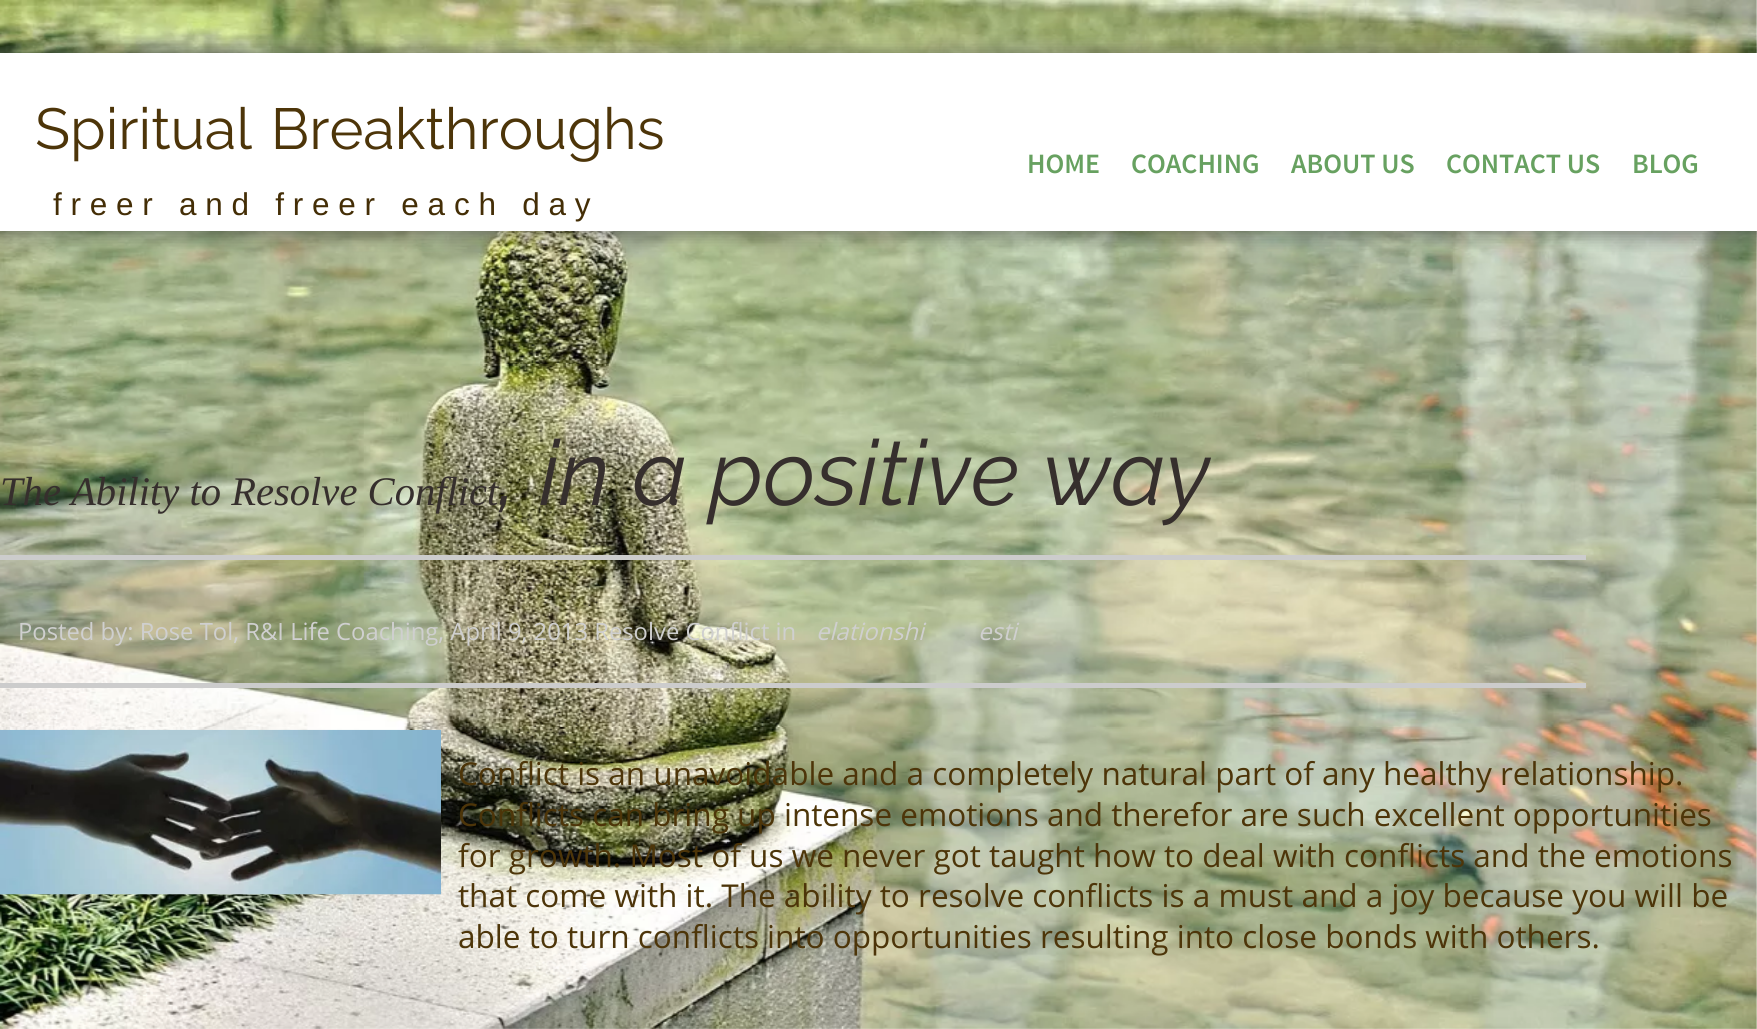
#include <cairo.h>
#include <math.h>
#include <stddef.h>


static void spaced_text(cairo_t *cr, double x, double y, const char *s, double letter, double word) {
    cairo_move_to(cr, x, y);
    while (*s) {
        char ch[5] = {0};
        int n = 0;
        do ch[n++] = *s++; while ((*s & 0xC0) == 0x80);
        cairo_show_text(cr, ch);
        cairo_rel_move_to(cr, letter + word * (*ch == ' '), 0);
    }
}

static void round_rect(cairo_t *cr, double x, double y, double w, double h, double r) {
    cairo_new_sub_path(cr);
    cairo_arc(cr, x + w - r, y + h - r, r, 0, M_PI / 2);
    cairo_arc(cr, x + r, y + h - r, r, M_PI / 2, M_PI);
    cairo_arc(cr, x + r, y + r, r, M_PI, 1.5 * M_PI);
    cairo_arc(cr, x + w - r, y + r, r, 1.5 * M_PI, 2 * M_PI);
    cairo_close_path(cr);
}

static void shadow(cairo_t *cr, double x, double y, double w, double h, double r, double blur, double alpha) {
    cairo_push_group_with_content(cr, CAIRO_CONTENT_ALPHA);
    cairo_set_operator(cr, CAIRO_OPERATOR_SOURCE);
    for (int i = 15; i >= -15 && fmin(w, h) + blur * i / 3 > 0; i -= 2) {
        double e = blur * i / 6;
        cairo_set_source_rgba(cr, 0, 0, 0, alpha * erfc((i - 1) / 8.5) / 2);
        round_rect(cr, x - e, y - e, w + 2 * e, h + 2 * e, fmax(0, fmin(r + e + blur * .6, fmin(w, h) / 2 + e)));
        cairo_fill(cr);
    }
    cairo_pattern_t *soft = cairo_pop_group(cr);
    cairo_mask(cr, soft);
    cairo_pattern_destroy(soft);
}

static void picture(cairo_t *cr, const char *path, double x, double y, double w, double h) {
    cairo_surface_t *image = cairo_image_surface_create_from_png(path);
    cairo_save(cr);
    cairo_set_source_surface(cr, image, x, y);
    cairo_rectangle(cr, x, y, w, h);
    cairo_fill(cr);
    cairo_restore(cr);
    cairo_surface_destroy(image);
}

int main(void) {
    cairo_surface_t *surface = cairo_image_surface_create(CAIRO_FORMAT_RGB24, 1757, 1029);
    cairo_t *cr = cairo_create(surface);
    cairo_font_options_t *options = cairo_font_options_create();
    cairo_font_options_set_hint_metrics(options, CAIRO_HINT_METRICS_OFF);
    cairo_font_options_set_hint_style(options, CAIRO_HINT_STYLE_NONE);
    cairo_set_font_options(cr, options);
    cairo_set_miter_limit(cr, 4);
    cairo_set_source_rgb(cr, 1, 1, 1);
    cairo_paint(cr);
    picture(cr, "img1.png", 0, 0, 1757, 1029);
    cairo_set_source_rgb(cr, 0.2, 0.2, 0.2);
    shadow(cr, -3, 51, 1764, 185, 0, 9, 0.5);
    cairo_set_source_rgb(cr, 1, 1, 1);
    cairo_rectangle(cr, 0, 53, 1757, 178);
    cairo_fill(cr);
    cairo_select_font_face(cr, "Raleway", CAIRO_FONT_SLANT_NORMAL, CAIRO_FONT_WEIGHT_NORMAL);
    cairo_set_font_size(cr, 57.75);
    cairo_set_source_rgb(cr, 0.302, 0.208, 0.039);
    spaced_text(cr, 35, 149, "Spiritual Breakthroughs", 0, 4);
    cairo_select_font_face(cr, "Source Sans Pro SemiBold", CAIRO_FONT_SLANT_NORMAL, CAIRO_FONT_WEIGHT_NORMAL);
    cairo_set_font_size(cr, 28);
    cairo_set_source_rgb(cr, 0.404, 0.631, 0.376);
    cairo_move_to(cr, 1027, 173);
    cairo_show_text(cr, "HOME");
    cairo_move_to(cr, 1131, 173);
    cairo_show_text(cr, "COACHING");
    cairo_move_to(cr, 1291, 173);
    cairo_show_text(cr, "ABOUT US");
    cairo_move_to(cr, 1446, 173);
    cairo_show_text(cr, "CONTACT US");
    cairo_move_to(cr, 1632, 173);
    cairo_show_text(cr, "BLOG");
    cairo_select_font_face(cr, "Liberation Sans", CAIRO_FONT_SLANT_NORMAL, CAIRO_FONT_WEIGHT_NORMAL);
    cairo_set_font_size(cr, 31.5);
    cairo_set_source_rgb(cr, 0.267, 0.18, 0.027);
    spaced_text(cr, 53, 215, "freer and freer each day", 8.75, 0);
    cairo_select_font_face(cr, "Liberation Serif", CAIRO_FONT_SLANT_ITALIC, CAIRO_FONT_WEIGHT_NORMAL);
    cairo_set_font_size(cr, 40.6);
    cairo_set_source_rgb(cr, 0.212, 0.184, 0.176);
    cairo_move_to(cr, 0, 505);
    cairo_show_text(cr, "The Ability to Resolve Conflict");
    cairo_select_font_face(cr, "Raleway", CAIRO_FONT_SLANT_ITALIC, CAIRO_FONT_WEIGHT_NORMAL);
    cairo_set_font_size(cr, 91);
    cairo_move_to(cr, 498, 505);
    cairo_show_text(cr, ", in a positive way");
    cairo_set_source_rgb(cr, 0.8, 0.8, 0.8);
    cairo_rectangle(cr, 0, 555, 1586, 5);
    cairo_fill(cr);
    cairo_select_font_face(cr, "Open Sans", CAIRO_FONT_SLANT_NORMAL, CAIRO_FONT_WEIGHT_NORMAL);
    cairo_set_font_size(cr, 23.8);
    cairo_set_source_rgb(cr, 0.812, 0.812, 0.812);
    cairo_move_to(cr, 18, 640);
    cairo_show_text(cr, "Posted by: Rose Tol, R&I Life Coaching, April 9, 2013 Resolve Conflict in");
    cairo_select_font_face(cr, "Open Sans", CAIRO_FONT_SLANT_ITALIC, CAIRO_FONT_WEIGHT_NORMAL);
    cairo_move_to(cr, 816, 640);
    cairo_show_text(cr, "elationshi");
    cairo_move_to(cr, 978, 640);
    cairo_show_text(cr, "esti");
    cairo_set_source_rgb(cr, 0.8, 0.8, 0.8);
    cairo_rectangle(cr, 0, 683, 1586, 5);
    cairo_fill(cr);
    picture(cr, "img2.png", 0, 729, 441, 166);
    cairo_select_font_face(cr, "Open Sans", CAIRO_FONT_SLANT_NORMAL, CAIRO_FONT_WEIGHT_NORMAL);
    cairo_set_font_size(cr, 31.5);
    cairo_set_source_rgb(cr, 0.302, 0.208, 0.039);
    cairo_move_to(cr, 458, 785);
    cairo_show_text(cr, "Conflict is an unavoidable and a completely natural part of any healthy relationship.");
    cairo_move_to(cr, 458, 826);
    cairo_show_text(cr, "Conflicts can bring up intense emotions and therefor are such excellent opportunities");
    cairo_move_to(cr, 458, 867);
    cairo_show_text(cr, "for growth. Most of us we never got taught how to deal with conflicts and the emotions");
    cairo_move_to(cr, 458, 907);
    cairo_show_text(cr, "that come with it. The ability to resolve conflicts is a must and a joy because you will be");
    cairo_move_to(cr, 458, 948);
    cairo_show_text(cr, "able to turn conflicts into opportunities resulting into close bonds with others.");
    cairo_surface_write_to_png(surface, "page.png");
    cairo_font_options_destroy(options);
    cairo_destroy(cr);
    cairo_surface_destroy(surface);
    return 0;
}
